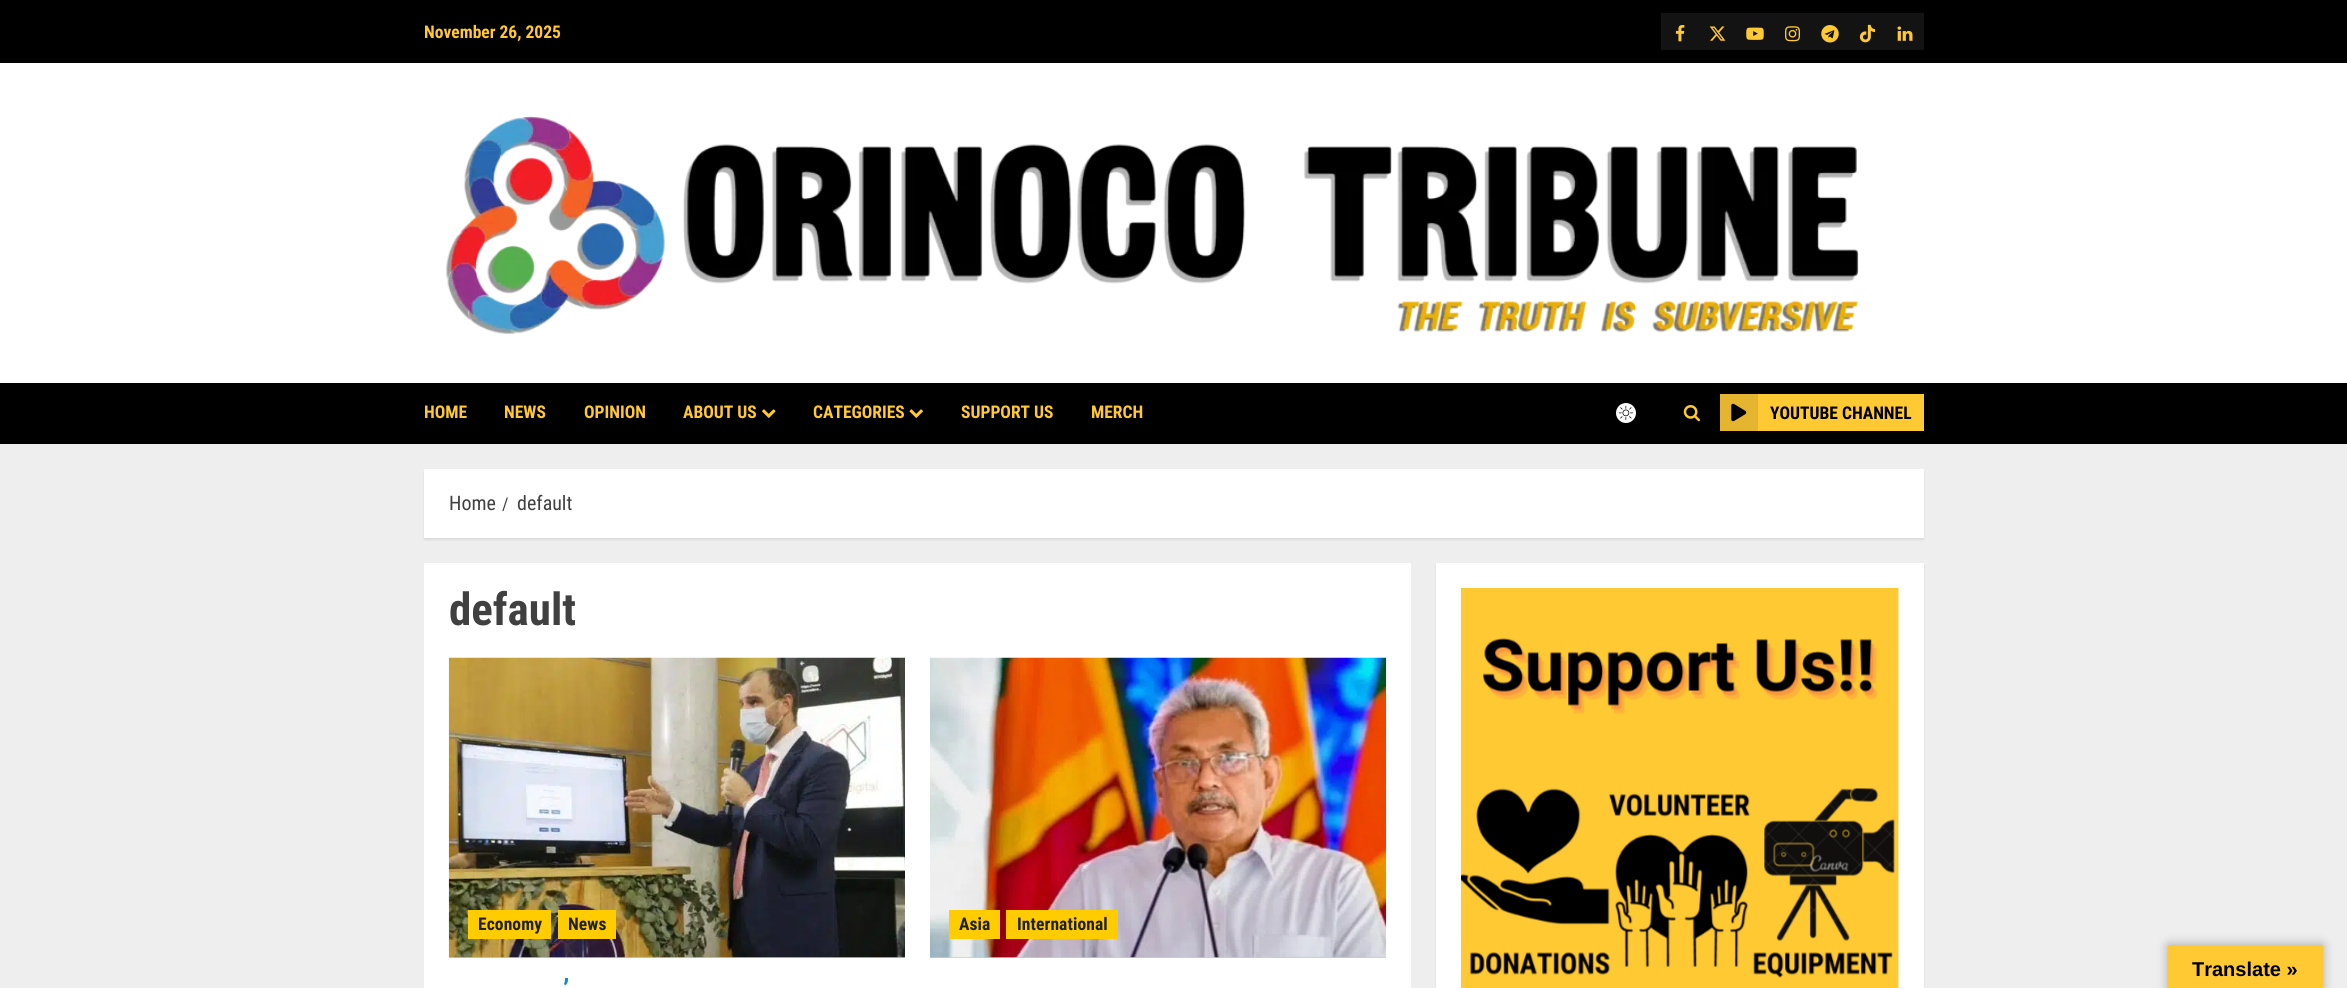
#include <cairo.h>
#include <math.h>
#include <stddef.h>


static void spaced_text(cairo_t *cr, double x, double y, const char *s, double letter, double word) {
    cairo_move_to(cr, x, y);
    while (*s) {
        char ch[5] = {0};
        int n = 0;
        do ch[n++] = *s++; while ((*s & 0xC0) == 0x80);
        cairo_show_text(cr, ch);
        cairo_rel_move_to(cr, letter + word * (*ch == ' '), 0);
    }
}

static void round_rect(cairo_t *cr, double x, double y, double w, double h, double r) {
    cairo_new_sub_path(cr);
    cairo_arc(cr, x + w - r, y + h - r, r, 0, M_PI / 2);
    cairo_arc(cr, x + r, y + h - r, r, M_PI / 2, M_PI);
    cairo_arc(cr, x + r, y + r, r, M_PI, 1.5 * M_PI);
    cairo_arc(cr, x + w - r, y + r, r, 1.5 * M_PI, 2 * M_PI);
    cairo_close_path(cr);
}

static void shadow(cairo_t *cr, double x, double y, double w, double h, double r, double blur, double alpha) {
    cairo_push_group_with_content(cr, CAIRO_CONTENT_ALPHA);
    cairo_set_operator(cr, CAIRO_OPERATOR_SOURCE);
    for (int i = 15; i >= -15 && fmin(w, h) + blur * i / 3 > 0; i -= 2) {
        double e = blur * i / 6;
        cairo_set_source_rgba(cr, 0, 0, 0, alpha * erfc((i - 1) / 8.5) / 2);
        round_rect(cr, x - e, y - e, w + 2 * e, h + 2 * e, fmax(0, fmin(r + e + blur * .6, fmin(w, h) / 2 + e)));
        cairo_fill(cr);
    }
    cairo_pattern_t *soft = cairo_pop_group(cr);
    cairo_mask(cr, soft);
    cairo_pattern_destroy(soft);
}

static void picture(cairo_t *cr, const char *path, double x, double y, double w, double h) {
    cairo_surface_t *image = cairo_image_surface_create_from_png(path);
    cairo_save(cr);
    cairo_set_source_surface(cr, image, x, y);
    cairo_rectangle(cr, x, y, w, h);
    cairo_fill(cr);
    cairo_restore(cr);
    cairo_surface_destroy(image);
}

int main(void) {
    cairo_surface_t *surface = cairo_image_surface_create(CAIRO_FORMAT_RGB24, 2347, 988);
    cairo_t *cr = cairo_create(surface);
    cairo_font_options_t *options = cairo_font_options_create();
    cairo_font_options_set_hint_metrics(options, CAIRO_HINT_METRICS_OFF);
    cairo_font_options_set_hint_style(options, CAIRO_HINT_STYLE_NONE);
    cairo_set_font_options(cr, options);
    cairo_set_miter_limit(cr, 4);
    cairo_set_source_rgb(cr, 0.933, 0.933, 0.933);
    cairo_paint(cr);
    cairo_set_source_rgb(cr, 0, 0, 0);
    cairo_rectangle(cr, 0, 0, 2347, 63);
    cairo_fill(cr);
    cairo_select_font_face(cr, "Roboto Condensed", CAIRO_FONT_SLANT_NORMAL, CAIRO_FONT_WEIGHT_BOLD);
    cairo_set_font_size(cr, 17.5);
    cairo_set_source_rgb(cr, 1, 0.788, 0.204);
    cairo_move_to(cr, 424, 38);
    cairo_show_text(cr, "November 26, 2025");
    cairo_set_source_rgb(cr, 0.075, 0.075, 0.075);
    cairo_rectangle(cr, 1661, 13, 263, 37);
    cairo_fill(cr);
    picture(cr, "img1.png", 1675, 25, 10, 17);
    picture(cr, "img2.png", 1709, 26, 17, 15);
    picture(cr, "img3.png", 1746, 27, 18, 13);
    picture(cr, "img4.png", 1785, 26, 15, 16);
    picture(cr, "img5.png", 1821, 25, 18, 18);
    picture(cr, "img6.png", 1859, 24, 17, 19);
    picture(cr, "img7.png", 1897, 26, 16, 15);
    cairo_set_source_rgb(cr, 1, 1, 1);
    cairo_rectangle(cr, 0, 63, 2347, 320);
    cairo_fill(cr);
    picture(cr, "img8.png", 446, 116, 1413, 219);
    cairo_set_source_rgb(cr, 0, 0, 0);
    cairo_rectangle(cr, 0, 383, 2347, 61);
    cairo_fill(cr);
    cairo_set_source_rgb(cr, 1, 0.788, 0.204);
    cairo_move_to(cr, 424, 418);
    cairo_show_text(cr, "HOME");
    cairo_move_to(cr, 504, 418);
    cairo_show_text(cr, "NEWS");
    cairo_move_to(cr, 584, 418);
    cairo_show_text(cr, "OPINION");
    cairo_move_to(cr, 683, 418);
    cairo_show_text(cr, "ABOUT US");
    picture(cr, "img9.png", 762, 409, 14, 9);
    cairo_move_to(cr, 813, 418);
    cairo_show_text(cr, "CATEGORIES");
    picture(cr, "img10.png", 909, 409, 14, 9);
    cairo_move_to(cr, 961, 418);
    cairo_show_text(cr, "SUPPORT US");
    cairo_move_to(cr, 1091, 418);
    cairo_show_text(cr, "MERCH");
    cairo_set_source_rgb(cr, 1, 1, 1);
    cairo_new_path(cr);
    cairo_arc(cr, 1626, 413, 10, 0, 2 * M_PI);
    cairo_fill(cr);
    picture(cr, "img11.png", 1619, 405, 14, 15);
    picture(cr, "img12.png", 1683, 405, 17, 17);
    cairo_set_source_rgb(cr, 1, 0.788, 0.204);
    cairo_rectangle(cr, 1758, 394, 166, 37);
    cairo_fill(cr);
    cairo_set_source_rgb(cr, 0.902, 0.71, 0.184);
    cairo_rectangle(cr, 1720, 394, 38, 37);
    cairo_fill(cr);
    picture(cr, "img13.png", 1731, 403, 16, 19);
    cairo_set_source_rgb(cr, 0, 0, 0);
    cairo_move_to(cr, 1770, 419);
    cairo_show_text(cr, "YOUTUBE CHANNEL");
    cairo_set_source_rgb(cr, 0, 0, 0);
    shadow(cr, 424, 471, 1500, 69, 0, 1, 0.08);
    cairo_set_source_rgb(cr, 1, 1, 1);
    cairo_rectangle(cr, 424, 469, 1500, 69);
    cairo_fill(cr);
    cairo_select_font_face(cr, "Roboto Condensed", CAIRO_FONT_SLANT_NORMAL, CAIRO_FONT_WEIGHT_NORMAL);
    cairo_set_font_size(cr, 20);
    cairo_set_source_rgb(cr, 0.251, 0.251, 0.251);
    cairo_move_to(cr, 449, 510);
    cairo_show_text(cr, "Home");
    cairo_set_font_size(cr, 17.5);
    cairo_move_to(cr, 502, 510);
    cairo_show_text(cr, "/");
    cairo_set_font_size(cr, 20);
    cairo_move_to(cr, 517, 510);
    cairo_show_text(cr, "default");
    cairo_set_source_rgb(cr, 1, 1, 1);
    cairo_rectangle(cr, 424, 563, 987, 425);
    cairo_fill(cr);
    cairo_select_font_face(cr, "Roboto Condensed", CAIRO_FONT_SLANT_NORMAL, CAIRO_FONT_WEIGHT_BOLD);
    cairo_set_font_size(cr, 45);
    cairo_set_source_rgb(cr, 0.251, 0.251, 0.251);
    cairo_move_to(cr, 449, 625);
    cairo_show_text(cr, "default");
    cairo_set_source_rgb(cr, 0.8, 0.8, 0.8);
    cairo_rectangle(cr, 449, 957, 456, 1);
    cairo_fill(cr);
    picture(cr, "img14.png", 448, 657, 457, 301);
    cairo_set_source_rgb(cr, 1, 0.8, 0);
    cairo_rectangle(cr, 468, 910, 83, 29);
    cairo_fill(cr);
    cairo_set_font_size(cr, 17.5);
    cairo_set_source_rgb(cr, 0.125, 0.125, 0.125);
    spaced_text(cr, 478, 930, "Economy", 0.1, 0);
    cairo_set_source_rgb(cr, 1, 0.8, 0);
    cairo_rectangle(cr, 558, 910, 58, 29);
    cairo_fill(cr);
    cairo_set_source_rgb(cr, 0.125, 0.125, 0.125);
    spaced_text(cr, 568, 930, "News", 0.1, 0);
    cairo_set_font_size(cr, 28);
    cairo_set_source_rgb(cr, 0.063, 0.553, 0.8);
    cairo_move_to(cr, 563, 999);
    cairo_show_text(cr, "’");
    cairo_set_source_rgb(cr, 0.8, 0.8, 0.8);
    cairo_rectangle(cr, 930, 957, 456, 1);
    cairo_fill(cr);
    picture(cr, "img15.png", 930, 657, 457, 301);
    cairo_set_source_rgb(cr, 1, 0.8, 0);
    cairo_rectangle(cr, 949, 910, 51, 29);
    cairo_fill(cr);
    cairo_set_font_size(cr, 17.5);
    cairo_set_source_rgb(cr, 0.125, 0.125, 0.125);
    spaced_text(cr, 959, 930, "Asia", 0.1, 0);
    cairo_set_source_rgb(cr, 1, 0.8, 0);
    cairo_rectangle(cr, 1006, 910, 112, 29);
    cairo_fill(cr);
    cairo_set_source_rgb(cr, 0.125, 0.125, 0.125);
    spaced_text(cr, 1017, 930, "International", 0.1, 0);
    cairo_set_source_rgb(cr, 0, 0, 0);
    shadow(cr, 1436, 565, 488, 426, 0, 1, 0.08);
    cairo_set_source_rgb(cr, 1, 1, 1);
    cairo_rectangle(cr, 1436, 563, 488, 425);
    cairo_fill(cr);
    picture(cr, "img16.png", 1461, 588, 438, 400);
    cairo_set_source_rgb(cr, 0, 0, 0);
    shadow(cr, 2168, 945, 155, 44, 0, 5.5, 0.3);
    cairo_set_source_rgb(cr, 1, 0.788, 0.204);
    cairo_rectangle(cr, 2168, 945, 155, 43);
    cairo_fill(cr);
    cairo_select_font_face(cr, "Liberation Sans", CAIRO_FONT_SLANT_NORMAL, CAIRO_FONT_WEIGHT_BOLD);
    cairo_set_font_size(cr, 20);
    cairo_set_source_rgb(cr, 0, 0, 0);
    cairo_move_to(cr, 2192, 976);
    cairo_show_text(cr, "Translate »");
    cairo_surface_write_to_png(surface, "page.png");
    cairo_font_options_destroy(options);
    cairo_destroy(cr);
    cairo_surface_destroy(surface);
    return 0;
}
